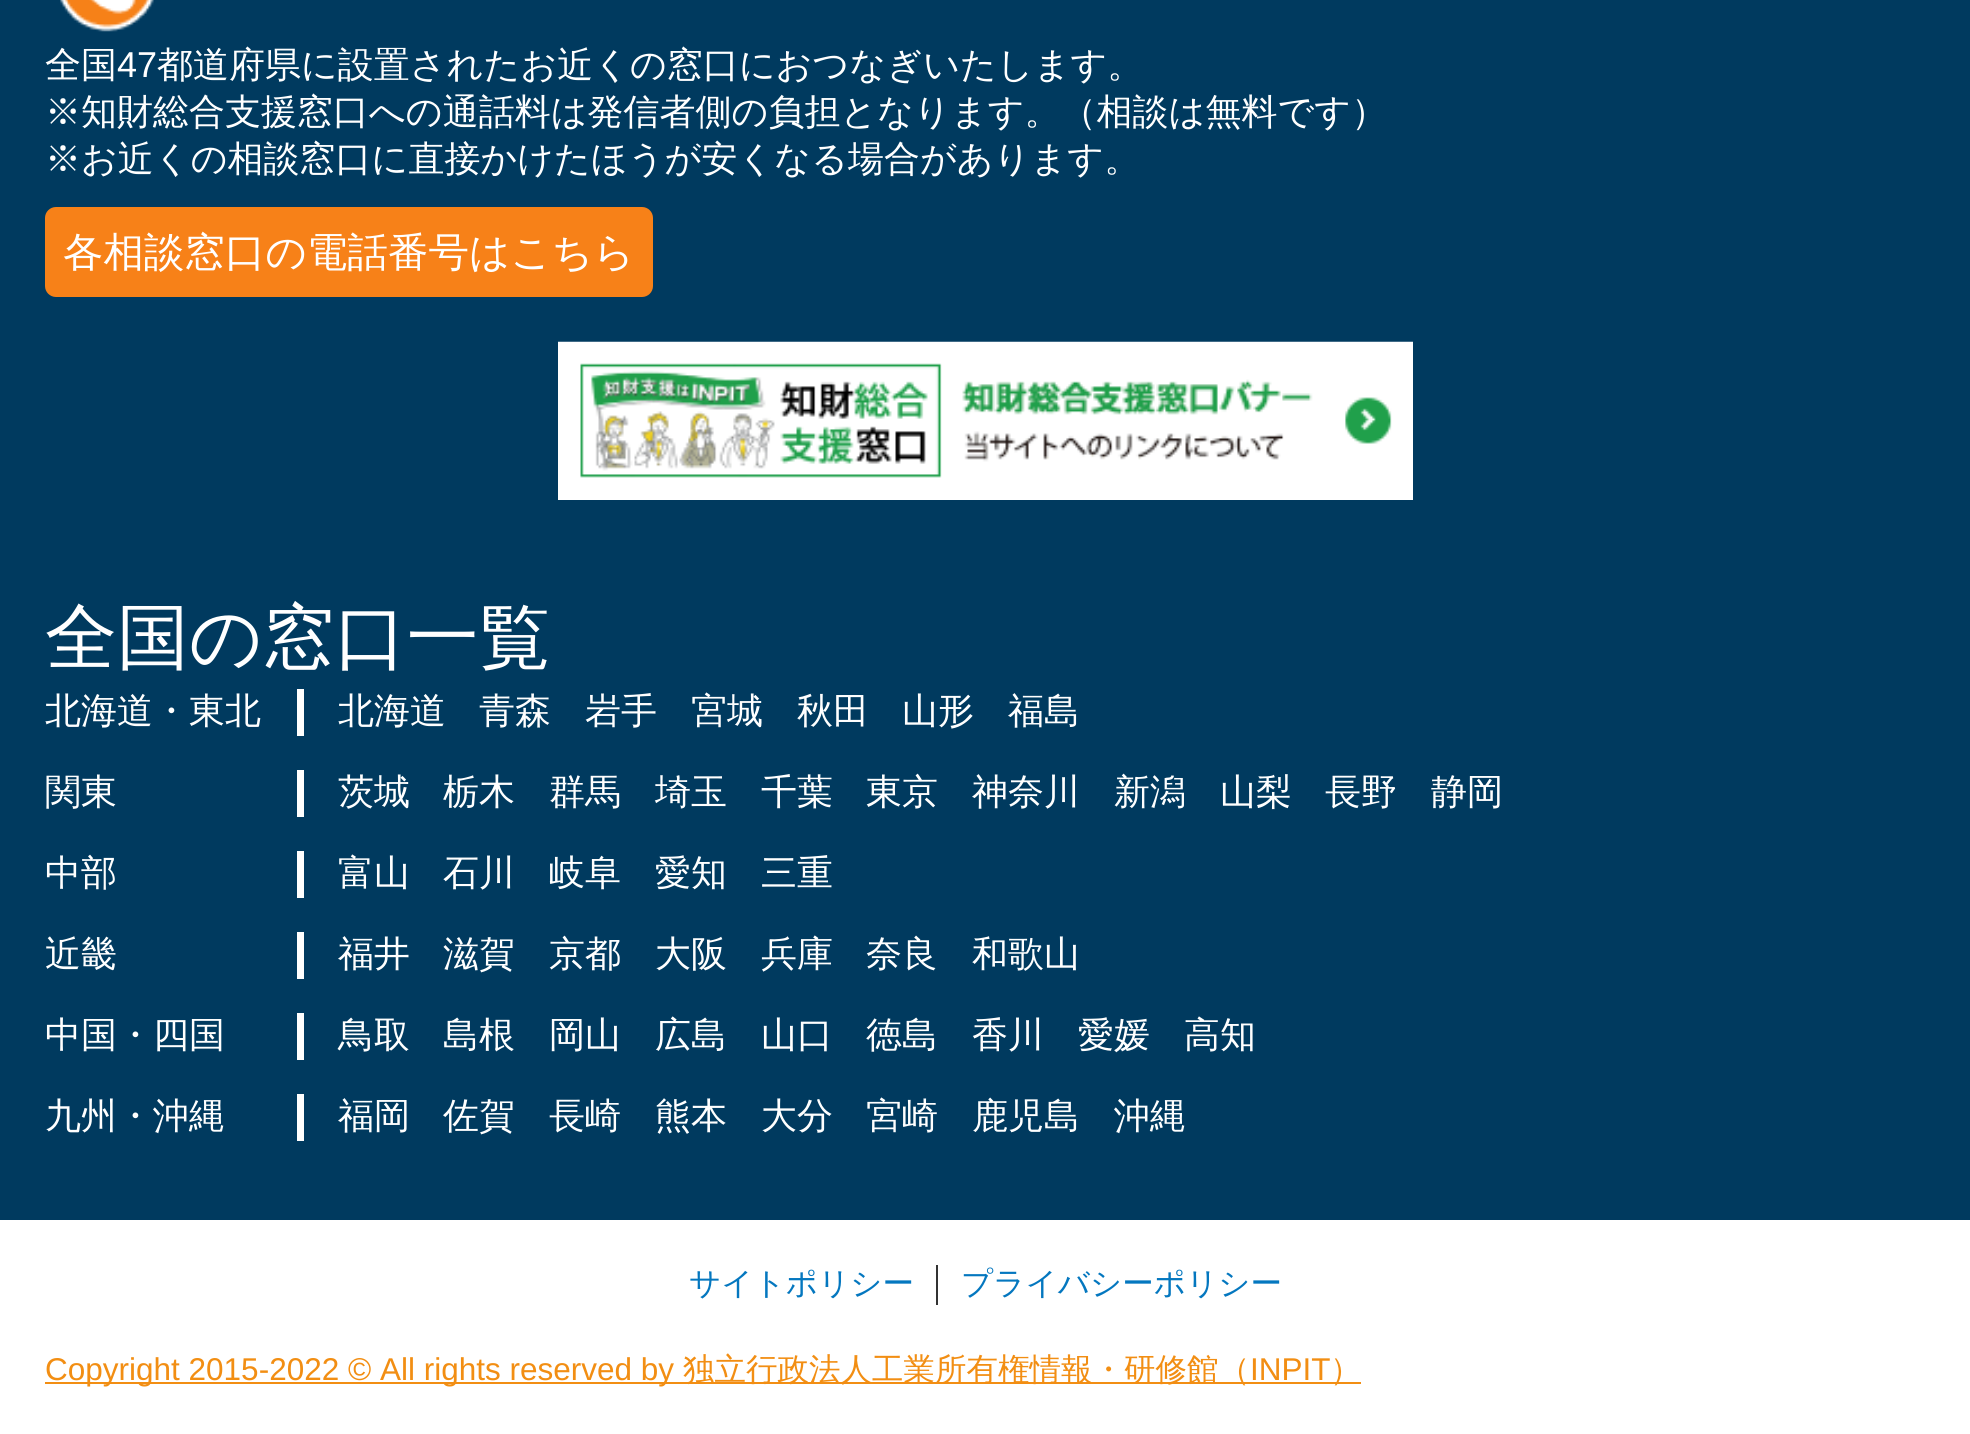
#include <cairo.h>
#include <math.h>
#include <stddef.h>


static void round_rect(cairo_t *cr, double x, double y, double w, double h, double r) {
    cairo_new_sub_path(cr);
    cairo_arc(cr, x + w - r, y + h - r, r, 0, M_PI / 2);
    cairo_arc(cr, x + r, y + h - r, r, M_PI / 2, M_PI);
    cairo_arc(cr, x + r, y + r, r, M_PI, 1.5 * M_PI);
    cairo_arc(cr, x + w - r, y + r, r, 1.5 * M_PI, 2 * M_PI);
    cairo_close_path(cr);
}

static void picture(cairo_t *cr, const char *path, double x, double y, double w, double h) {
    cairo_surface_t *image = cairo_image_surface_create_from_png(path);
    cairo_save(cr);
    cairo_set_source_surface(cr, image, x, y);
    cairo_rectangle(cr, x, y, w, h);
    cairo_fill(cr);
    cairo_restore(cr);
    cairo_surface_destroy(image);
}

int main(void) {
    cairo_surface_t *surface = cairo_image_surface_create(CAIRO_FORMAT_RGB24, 1970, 1434);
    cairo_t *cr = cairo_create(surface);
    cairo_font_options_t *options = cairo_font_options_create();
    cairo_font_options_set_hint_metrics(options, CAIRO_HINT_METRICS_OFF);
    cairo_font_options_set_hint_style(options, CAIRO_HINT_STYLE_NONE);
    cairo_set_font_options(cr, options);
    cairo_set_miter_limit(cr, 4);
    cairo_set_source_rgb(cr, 1, 1, 1);
    cairo_paint(cr);
    cairo_set_source_rgb(cr, 0, 0.227, 0.373);
    cairo_rectangle(cr, 0, 0, 1970, 1220);
    cairo_fill(cr);
    picture(cr, "img1.png", 60, 0, 94, 32);
    cairo_select_font_face(cr, "WenQuanYi Zen Hei Medium", CAIRO_FONT_SLANT_NORMAL, CAIRO_FONT_WEIGHT_NORMAL);
    cairo_set_font_size(cr, 36);
    cairo_set_source_rgb(cr, 1, 1, 1);
    cairo_move_to(cr, 45, 77);
    cairo_show_text(cr, "全国");
    cairo_select_font_face(cr, "Liberation Sans", CAIRO_FONT_SLANT_NORMAL, CAIRO_FONT_WEIGHT_NORMAL);
    cairo_move_to(cr, 117, 77);
    cairo_show_text(cr, "47");
    cairo_select_font_face(cr, "WenQuanYi Zen Hei Medium", CAIRO_FONT_SLANT_NORMAL, CAIRO_FONT_WEIGHT_NORMAL);
    cairo_move_to(cr, 157, 77);
    cairo_show_text(cr, "都道府県に設置されたお近くの窓口におつなぎいたします。");
    cairo_move_to(cr, 45, 124);
    cairo_show_text(cr, "※知財総合支援窓口への通話料は発信者側の負担となります。（相談は無料です）");
    cairo_move_to(cr, 45, 171);
    cairo_show_text(cr, "※お近くの相談窓口に直接かけたほうが安くなる場合があります。");
    cairo_set_source_rgb(cr, 0.965, 0.506, 0.094);
    round_rect(cr, 45, 207, 608, 90, 11);
    cairo_fill(cr);
    cairo_set_font_size(cr, 40.5);
    cairo_set_source_rgb(cr, 1, 1, 1);
    cairo_move_to(cr, 63, 266);
    cairo_show_text(cr, "各相談窓口の電話番号はこちら");
    cairo_rectangle(cr, 558, 478, 855, 22);
    cairo_fill(cr);
    picture(cr, "img2.png", 558, 341, 855, 137);
    cairo_set_font_size(cr, 72);
    cairo_move_to(cr, 45, 662);
    cairo_show_text(cr, "全国の窓口一覧");
    cairo_set_font_size(cr, 36);
    cairo_move_to(cr, 45, 723);
    cairo_show_text(cr, "北海道・東北");
    cairo_rectangle(cr, 297, 689, 7, 47);
    cairo_fill(cr);
    cairo_move_to(cr, 338, 723);
    cairo_show_text(cr, "北海道");
    cairo_move_to(cr, 479, 723);
    cairo_show_text(cr, "青森");
    cairo_move_to(cr, 585, 723);
    cairo_show_text(cr, "岩手");
    cairo_move_to(cr, 691, 723);
    cairo_show_text(cr, "宮城");
    cairo_move_to(cr, 797, 723);
    cairo_show_text(cr, "秋田");
    cairo_move_to(cr, 902, 723);
    cairo_show_text(cr, "山形");
    cairo_move_to(cr, 1008, 723);
    cairo_show_text(cr, "福島");
    cairo_move_to(cr, 45, 804);
    cairo_show_text(cr, "関東");
    cairo_rectangle(cr, 297, 770, 7, 47);
    cairo_fill(cr);
    cairo_move_to(cr, 338, 804);
    cairo_show_text(cr, "茨城");
    cairo_move_to(cr, 443, 804);
    cairo_show_text(cr, "栃木");
    cairo_move_to(cr, 549, 804);
    cairo_show_text(cr, "群馬");
    cairo_move_to(cr, 655, 804);
    cairo_show_text(cr, "埼玉");
    cairo_move_to(cr, 761, 804);
    cairo_show_text(cr, "千葉");
    cairo_move_to(cr, 866, 804);
    cairo_show_text(cr, "東京");
    cairo_move_to(cr, 972, 804);
    cairo_show_text(cr, "神奈川");
    cairo_move_to(cr, 1114, 804);
    cairo_show_text(cr, "新潟");
    cairo_move_to(cr, 1220, 804);
    cairo_show_text(cr, "山梨");
    cairo_move_to(cr, 1325, 804);
    cairo_show_text(cr, "長野");
    cairo_move_to(cr, 1431, 804);
    cairo_show_text(cr, "静岡");
    cairo_move_to(cr, 45, 885);
    cairo_show_text(cr, "中部");
    cairo_rectangle(cr, 297, 851, 7, 47);
    cairo_fill(cr);
    cairo_move_to(cr, 338, 885);
    cairo_show_text(cr, "富山");
    cairo_move_to(cr, 443, 885);
    cairo_show_text(cr, "石川");
    cairo_move_to(cr, 549, 885);
    cairo_show_text(cr, "岐阜");
    cairo_move_to(cr, 655, 885);
    cairo_show_text(cr, "愛知");
    cairo_move_to(cr, 761, 885);
    cairo_show_text(cr, "三重");
    cairo_move_to(cr, 45, 966);
    cairo_show_text(cr, "近畿");
    cairo_rectangle(cr, 297, 932, 7, 47);
    cairo_fill(cr);
    cairo_move_to(cr, 338, 966);
    cairo_show_text(cr, "福井");
    cairo_move_to(cr, 443, 966);
    cairo_show_text(cr, "滋賀");
    cairo_move_to(cr, 549, 966);
    cairo_show_text(cr, "京都");
    cairo_move_to(cr, 655, 966);
    cairo_show_text(cr, "大阪");
    cairo_move_to(cr, 761, 966);
    cairo_show_text(cr, "兵庫");
    cairo_move_to(cr, 866, 966);
    cairo_show_text(cr, "奈良");
    cairo_move_to(cr, 972, 966);
    cairo_show_text(cr, "和歌山");
    cairo_move_to(cr, 45, 1047);
    cairo_show_text(cr, "中国・四国");
    cairo_rectangle(cr, 297, 1013, 7, 47);
    cairo_fill(cr);
    cairo_move_to(cr, 338, 1047);
    cairo_show_text(cr, "鳥取");
    cairo_move_to(cr, 443, 1047);
    cairo_show_text(cr, "島根");
    cairo_move_to(cr, 549, 1047);
    cairo_show_text(cr, "岡山");
    cairo_move_to(cr, 655, 1047);
    cairo_show_text(cr, "広島");
    cairo_move_to(cr, 761, 1047);
    cairo_show_text(cr, "山口");
    cairo_move_to(cr, 866, 1047);
    cairo_show_text(cr, "徳島");
    cairo_move_to(cr, 972, 1047);
    cairo_show_text(cr, "香川");
    cairo_move_to(cr, 1078, 1047);
    cairo_show_text(cr, "愛媛");
    cairo_move_to(cr, 1184, 1047);
    cairo_show_text(cr, "高知");
    cairo_move_to(cr, 45, 1128);
    cairo_show_text(cr, "九州・沖縄");
    cairo_rectangle(cr, 297, 1094, 7, 47);
    cairo_fill(cr);
    cairo_move_to(cr, 338, 1128);
    cairo_show_text(cr, "福岡");
    cairo_move_to(cr, 443, 1128);
    cairo_show_text(cr, "佐賀");
    cairo_move_to(cr, 549, 1128);
    cairo_show_text(cr, "長崎");
    cairo_move_to(cr, 655, 1128);
    cairo_show_text(cr, "熊本");
    cairo_move_to(cr, 761, 1128);
    cairo_show_text(cr, "大分");
    cairo_move_to(cr, 866, 1128);
    cairo_show_text(cr, "宮崎");
    cairo_move_to(cr, 972, 1128);
    cairo_show_text(cr, "鹿児島");
    cairo_move_to(cr, 1114, 1128);
    cairo_show_text(cr, "沖縄");
    cairo_set_source_rgb(cr, 0.2, 0.2, 0.2);
    cairo_rectangle(cr, 936, 1265, 2, 40);
    cairo_fill(cr);
    cairo_set_font_size(cr, 31.5);
    cairo_set_source_rgb(cr, 0.016, 0.467, 0.749);
    cairo_move_to(cr, 689, 1294);
    cairo_show_text(cr, "サイトポリシー");
    cairo_move_to(cr, 961, 1294);
    cairo_show_text(cr, "プライバシーポリシー");
    cairo_set_source_rgb(cr, 0.949, 0.557, 0.075);
    cairo_rectangle(cr, 45, 1382, 1316, 2);
    cairo_fill(cr);
    cairo_select_font_face(cr, "Liberation Sans", CAIRO_FONT_SLANT_NORMAL, CAIRO_FONT_WEIGHT_NORMAL);
    cairo_move_to(cr, 45, 1380);
    cairo_show_text(cr, "Copyright 2015-2022 © All rights reserved by");
    cairo_select_font_face(cr, "WenQuanYi Zen Hei Medium", CAIRO_FONT_SLANT_NORMAL, CAIRO_FONT_WEIGHT_NORMAL);
    cairo_move_to(cr, 683, 1380);
    cairo_show_text(cr, "独立行政法人工業所有権情報・研修館（");
    cairo_select_font_face(cr, "Liberation Sans", CAIRO_FONT_SLANT_NORMAL, CAIRO_FONT_WEIGHT_NORMAL);
    cairo_move_to(cr, 1250, 1380);
    cairo_show_text(cr, "INPIT");
    cairo_select_font_face(cr, "WenQuanYi Zen Hei Medium", CAIRO_FONT_SLANT_NORMAL, CAIRO_FONT_WEIGHT_NORMAL);
    cairo_move_to(cr, 1330, 1380);
    cairo_show_text(cr, "）");
    cairo_surface_write_to_png(surface, "page.png");
    cairo_font_options_destroy(options);
    cairo_destroy(cr);
    cairo_surface_destroy(surface);
    return 0;
}
